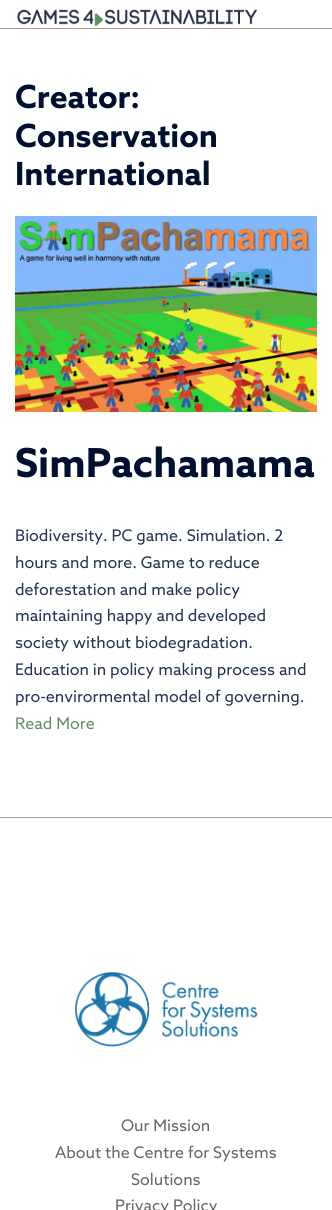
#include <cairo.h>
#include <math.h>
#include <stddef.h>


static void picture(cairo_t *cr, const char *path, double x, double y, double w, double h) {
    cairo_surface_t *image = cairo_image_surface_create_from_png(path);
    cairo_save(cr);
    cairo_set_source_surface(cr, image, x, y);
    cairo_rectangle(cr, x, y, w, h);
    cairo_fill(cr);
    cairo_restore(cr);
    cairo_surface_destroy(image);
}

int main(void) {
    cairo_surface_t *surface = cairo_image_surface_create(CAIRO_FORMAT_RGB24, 332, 1210);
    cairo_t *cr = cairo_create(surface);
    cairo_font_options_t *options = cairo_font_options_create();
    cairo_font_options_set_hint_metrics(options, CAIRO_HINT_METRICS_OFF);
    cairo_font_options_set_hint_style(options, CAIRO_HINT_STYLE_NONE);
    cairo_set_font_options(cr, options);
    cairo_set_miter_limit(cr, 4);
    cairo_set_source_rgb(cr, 1, 1, 1);
    cairo_paint(cr);
    cairo_set_source_rgb(cr, 0.647, 0.608, 0.573);
    cairo_rectangle(cr, 0, 28, 332, 1);
    cairo_fill(cr);
    picture(cr, "img1.png", 17, 9, 240, 18);
    cairo_select_font_face(cr, "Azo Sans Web", CAIRO_FONT_SLANT_NORMAL, CAIRO_FONT_WEIGHT_BOLD);
    cairo_set_font_size(cr, 32);
    cairo_set_source_rgb(cr, 0, 0.063, 0.18);
    cairo_move_to(cr, 15, 108);
    cairo_show_text(cr, "Creator:");
    cairo_move_to(cr, 15, 147);
    cairo_show_text(cr, "Conservation");
    cairo_move_to(cr, 15, 185);
    cairo_show_text(cr, "International");
    picture(cr, "img2.png", 15, 216, 302, 196);
    cairo_set_font_size(cr, 40);
    cairo_move_to(cr, 15, 477);
    cairo_show_text(cr, "SimPachamama");
    cairo_select_font_face(cr, "Azo Sans Web", CAIRO_FONT_SLANT_NORMAL, CAIRO_FONT_WEIGHT_NORMAL);
    cairo_set_font_size(cr, 16);
    cairo_set_source_rgb(cr, 0.137, 0.204, 0.322);
    cairo_move_to(cr, 15, 541);
    cairo_show_text(cr, "Biodiversity. PC game. Simulation. 2");
    cairo_move_to(cr, 15, 568);
    cairo_show_text(cr, "hours and more. Game to reduce");
    cairo_move_to(cr, 15, 595);
    cairo_show_text(cr, "deforestation and make policy");
    cairo_move_to(cr, 15, 621);
    cairo_show_text(cr, "maintaining happy and developed");
    cairo_move_to(cr, 15, 648);
    cairo_show_text(cr, "society without biodegradation.");
    cairo_move_to(cr, 15, 675);
    cairo_show_text(cr, "Education in policy making process and");
    cairo_move_to(cr, 15, 702);
    cairo_show_text(cr, "pro-envirormental model of governing.");
    cairo_set_source_rgb(cr, 0.38, 0.557, 0.392);
    cairo_move_to(cr, 15, 729);
    cairo_show_text(cr, "Read More");
    cairo_set_source_rgb(cr, 0.647, 0.608, 0.573);
    cairo_rectangle(cr, 0, 817, 332, 1);
    cairo_fill(cr);
    picture(cr, "img3.png", 75, 972, 183, 75);
    cairo_set_source_rgb(cr, 0.4, 0.4, 0.4);
    cairo_move_to(cr, 121, 1131);
    cairo_show_text(cr, "Our Mission");
    cairo_move_to(cr, 55, 1158);
    cairo_show_text(cr, "About the Centre for Systems");
    cairo_move_to(cr, 131, 1185);
    cairo_show_text(cr, "Solutions");
    cairo_move_to(cr, 115, 1211);
    cairo_show_text(cr, "Privacy Policy");
    cairo_surface_write_to_png(surface, "page.png");
    cairo_font_options_destroy(options);
    cairo_destroy(cr);
    cairo_surface_destroy(surface);
    return 0;
}
